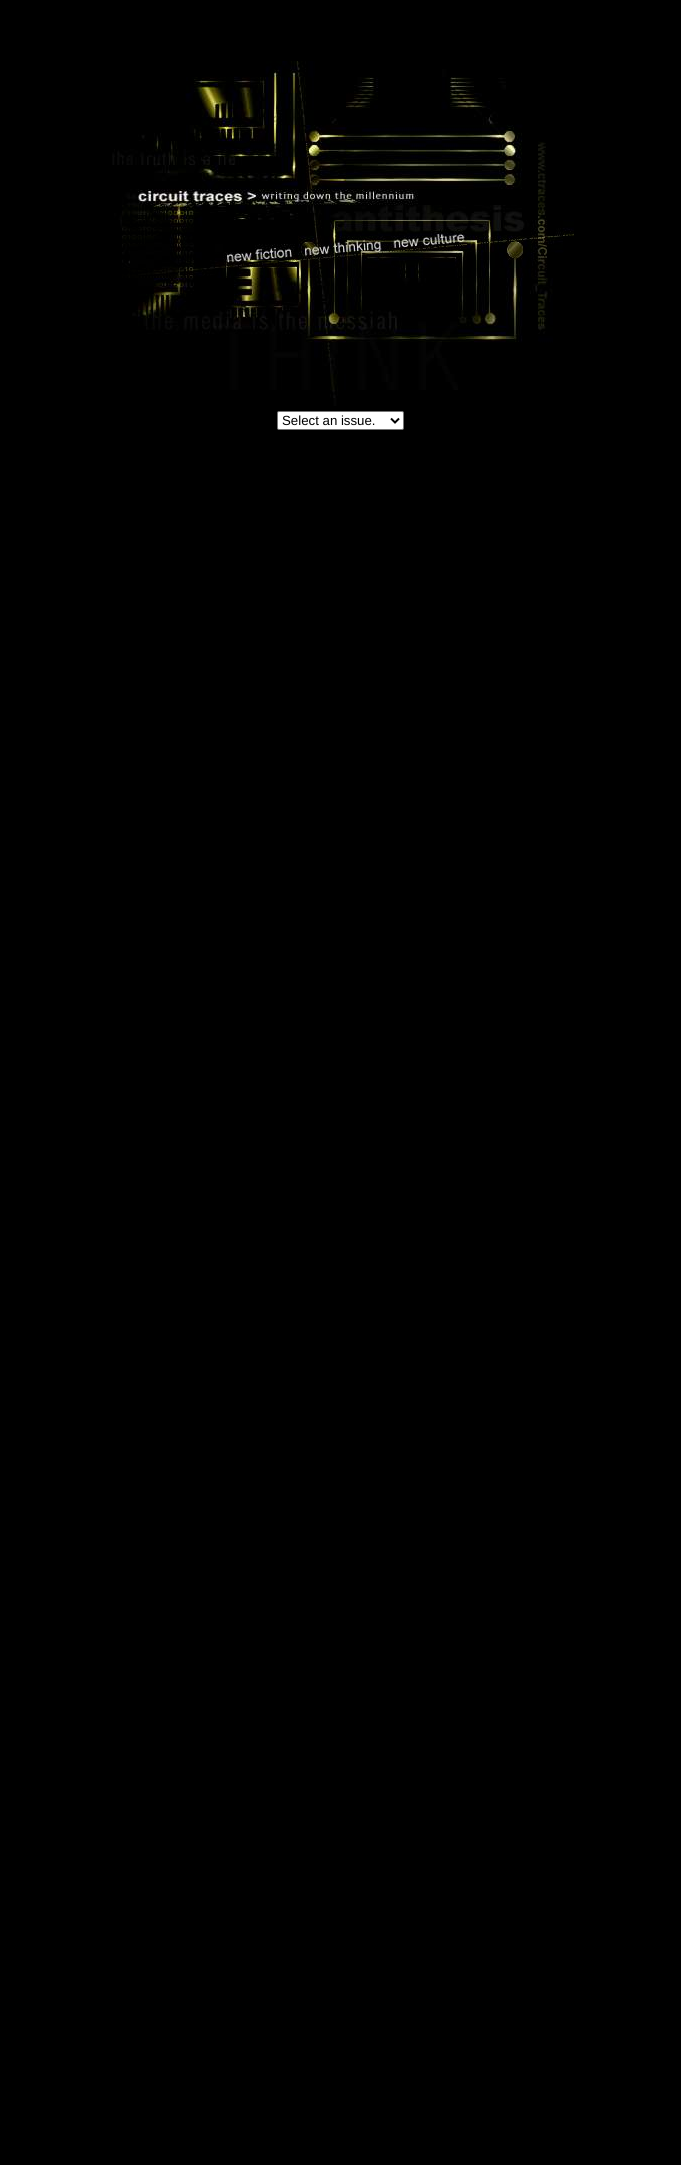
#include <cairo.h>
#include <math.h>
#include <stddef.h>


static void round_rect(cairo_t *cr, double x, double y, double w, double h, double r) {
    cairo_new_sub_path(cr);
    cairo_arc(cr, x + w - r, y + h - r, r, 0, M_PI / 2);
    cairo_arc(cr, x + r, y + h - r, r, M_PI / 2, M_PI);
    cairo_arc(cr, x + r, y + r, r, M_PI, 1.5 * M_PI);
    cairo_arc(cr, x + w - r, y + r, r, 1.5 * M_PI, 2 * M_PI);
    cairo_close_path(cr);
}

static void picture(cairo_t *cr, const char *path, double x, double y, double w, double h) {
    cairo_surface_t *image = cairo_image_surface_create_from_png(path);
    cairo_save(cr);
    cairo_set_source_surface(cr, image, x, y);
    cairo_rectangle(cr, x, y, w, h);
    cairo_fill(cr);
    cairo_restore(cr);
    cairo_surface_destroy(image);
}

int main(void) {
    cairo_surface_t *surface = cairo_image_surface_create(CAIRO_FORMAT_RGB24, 681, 2165);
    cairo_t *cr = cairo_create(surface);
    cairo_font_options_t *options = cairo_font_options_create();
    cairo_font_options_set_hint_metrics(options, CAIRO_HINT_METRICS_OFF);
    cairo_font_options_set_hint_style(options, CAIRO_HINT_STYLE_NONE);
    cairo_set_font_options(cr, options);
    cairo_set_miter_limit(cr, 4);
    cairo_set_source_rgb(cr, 0, 0, 0);
    cairo_paint(cr);
    picture(cr, "img1.png", 112, 61, 434, 159);
    picture(cr, "img2.png", 120, 220, 95, 58);
    picture(cr, "img3.png", 215, 244, 83, 34);
    picture(cr, "img4.png", 298, 220, 93, 58);
    picture(cr, "img5.png", 391, 220, 76, 58);
    picture(cr, "img6.png", 467, 220, 107, 58);
    picture(cr, "img7.png", 132, 278, 421, 128);
    cairo_set_source_rgb(cr, 1, 1, 1);
    round_rect(cr, 277.5, 411.5, 126, 18, 1.5);
    cairo_fill_preserve(cr);
    cairo_set_source_rgb(cr, 0.463, 0.463, 0.463);
    cairo_set_line_width(cr, 1);
    cairo_stroke(cr);
    cairo_new_path(cr);
    cairo_move_to(cr, 391, 418.5);
    cairo_line_to(cr, 395, 422.5);
    cairo_line_to(cr, 399, 418.5);
    cairo_set_source_rgb(cr, 0, 0, 0);
    cairo_set_line_width(cr, 2);
    cairo_stroke(cr);
    cairo_select_font_face(cr, "Liberation Sans", CAIRO_FONT_SLANT_NORMAL, CAIRO_FONT_WEIGHT_NORMAL);
    cairo_set_font_size(cr, 13.25);
    cairo_move_to(cr, 282, 425);
    cairo_show_text(cr, "Select an issue.");
    cairo_surface_write_to_png(surface, "page.png");
    cairo_font_options_destroy(options);
    cairo_destroy(cr);
    cairo_surface_destroy(surface);
    return 0;
}
